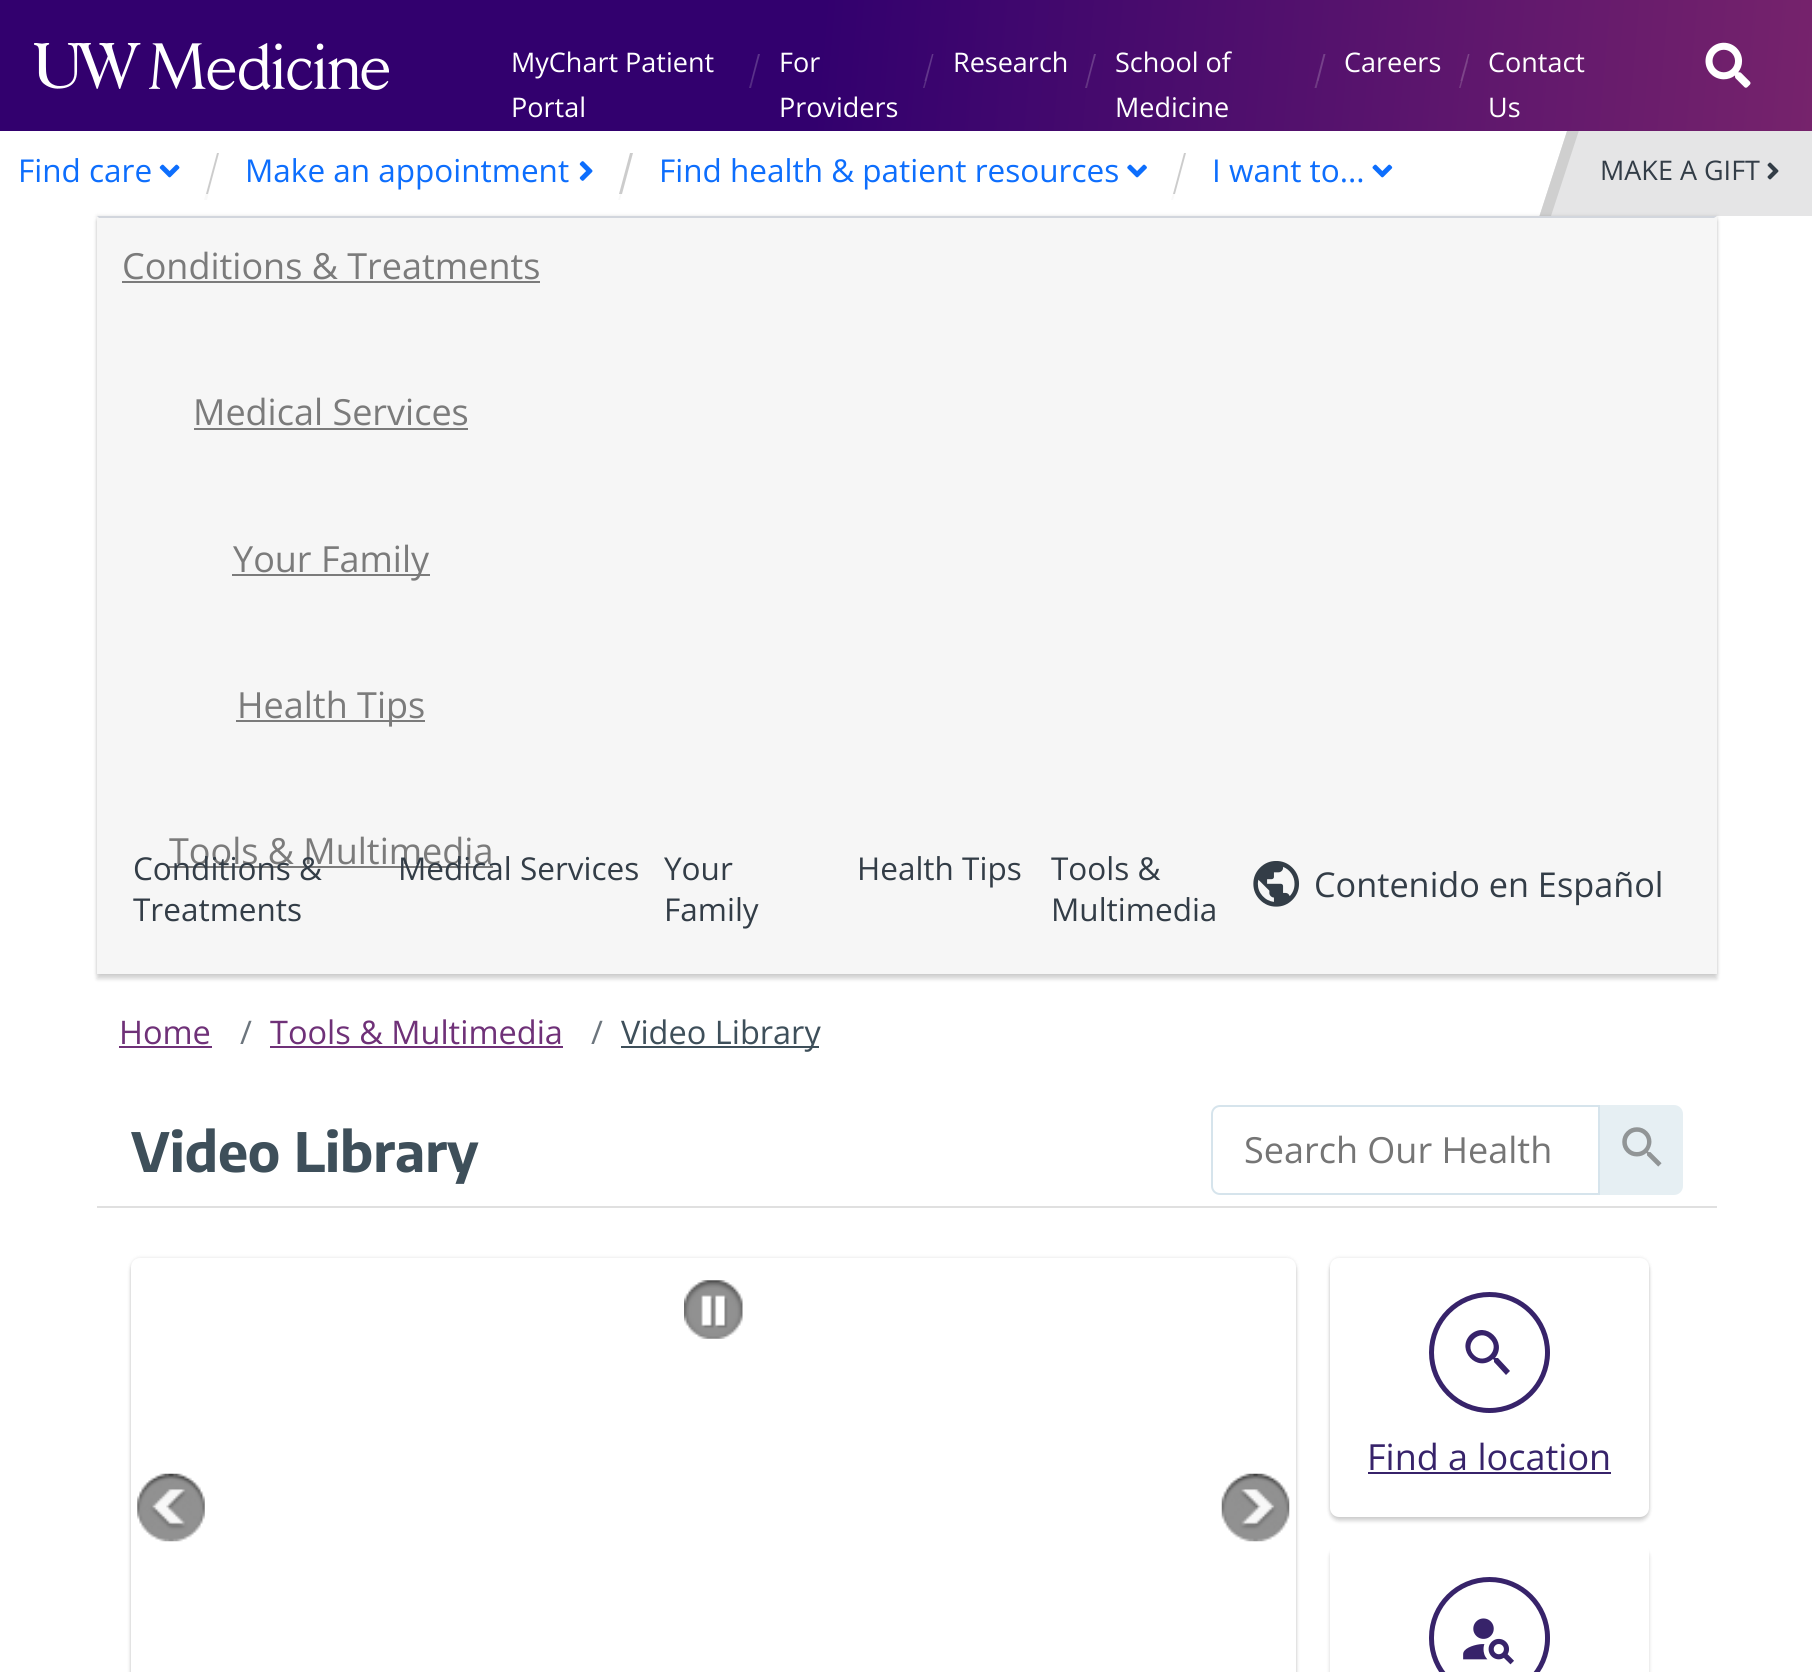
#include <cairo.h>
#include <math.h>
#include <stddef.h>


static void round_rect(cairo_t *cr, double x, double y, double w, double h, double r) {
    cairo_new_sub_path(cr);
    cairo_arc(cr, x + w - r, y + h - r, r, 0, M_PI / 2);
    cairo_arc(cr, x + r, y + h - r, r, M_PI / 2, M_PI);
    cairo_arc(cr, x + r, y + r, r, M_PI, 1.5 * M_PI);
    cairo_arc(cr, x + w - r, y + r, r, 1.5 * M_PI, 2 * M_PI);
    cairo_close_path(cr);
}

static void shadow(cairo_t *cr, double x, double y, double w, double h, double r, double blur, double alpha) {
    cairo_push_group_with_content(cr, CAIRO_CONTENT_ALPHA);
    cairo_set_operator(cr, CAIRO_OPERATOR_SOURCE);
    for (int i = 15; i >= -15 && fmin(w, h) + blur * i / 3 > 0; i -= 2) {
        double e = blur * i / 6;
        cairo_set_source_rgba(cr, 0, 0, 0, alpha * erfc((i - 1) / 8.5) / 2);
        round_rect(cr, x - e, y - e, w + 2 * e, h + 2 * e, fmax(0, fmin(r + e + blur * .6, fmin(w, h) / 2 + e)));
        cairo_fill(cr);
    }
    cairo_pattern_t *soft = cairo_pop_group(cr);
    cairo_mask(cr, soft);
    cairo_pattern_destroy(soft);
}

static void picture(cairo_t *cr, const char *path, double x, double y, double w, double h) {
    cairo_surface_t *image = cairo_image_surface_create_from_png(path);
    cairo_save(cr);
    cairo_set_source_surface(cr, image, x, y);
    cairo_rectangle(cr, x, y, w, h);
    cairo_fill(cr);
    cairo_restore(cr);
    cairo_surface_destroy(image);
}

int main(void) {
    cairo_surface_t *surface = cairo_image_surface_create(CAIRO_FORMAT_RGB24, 1812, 1672);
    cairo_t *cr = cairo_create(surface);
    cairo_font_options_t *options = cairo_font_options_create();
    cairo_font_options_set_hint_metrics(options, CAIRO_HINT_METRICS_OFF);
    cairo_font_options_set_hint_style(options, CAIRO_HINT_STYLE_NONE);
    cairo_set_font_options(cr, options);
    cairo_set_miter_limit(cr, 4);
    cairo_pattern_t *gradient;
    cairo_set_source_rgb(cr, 1, 1, 1);
    cairo_paint(cr);
    gradient = cairo_pattern_create_linear(1.2, -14, 1812, 144);
    cairo_pattern_add_color_stop_rgba(gradient, 0, 0.196, 0, 0.431, 1);
    cairo_pattern_add_color_stop_rgba(gradient, 0.45, 0.196, 0, 0.431, 1);
    cairo_pattern_add_color_stop_rgba(gradient, 1, 0.463, 0.137, 0.424, 1);
    cairo_set_source(cr, gradient);
    cairo_pattern_destroy(gradient);
    cairo_rectangle(cr, 0, 0, 1812, 131);
    cairo_fill(cr);
    picture(cr, "img1.png", 34, 43, 355, 47);
    cairo_select_font_face(cr, "Open Sans", CAIRO_FONT_SLANT_NORMAL, CAIRO_FONT_WEIGHT_NORMAL);
    cairo_set_font_size(cr, 27);
    cairo_set_source_rgb(cr, 1, 1, 1);
    cairo_move_to(cr, 511, 72);
    cairo_show_text(cr, "MyChart Patient");
    cairo_move_to(cr, 511, 117);
    cairo_show_text(cr, "Portal");
    cairo_set_source_rgb(cr, 0.329, 0.173, 0.518);
    cairo_set_fill_rule(cr, CAIRO_FILL_RULE_EVEN_ODD);
    cairo_new_path(cr);
    cairo_move_to(cr, 756, 61);
    cairo_line_to(cr, 751, 79.5);
    cairo_close_path(cr);
    cairo_move_to(cr, 751, 81);
    cairo_line_to(cr, 749, 88);
    cairo_line_to(cr, 751, 88);
    cairo_line_to(cr, 758, 61);
    cairo_line_to(cr, 752.5, 81);
    cairo_close_path(cr);
    cairo_fill(cr);
    cairo_set_source_rgb(cr, 0.357, 0.2, 0.545);
    cairo_set_fill_rule(cr, CAIRO_FILL_RULE_WINDING);
    cairo_new_path(cr);
    cairo_move_to(cr, 758, 54);
    cairo_line_to(cr, 760, 54);
    cairo_line_to(cr, 752.5, 81);
    cairo_line_to(cr, 751, 81);
    cairo_close_path(cr);
    cairo_fill(cr);
    cairo_set_source_rgb(cr, 1, 1, 1);
    cairo_move_to(cr, 779, 72);
    cairo_show_text(cr, "For");
    cairo_move_to(cr, 779, 117);
    cairo_show_text(cr, "Providers");
    cairo_set_source_rgb(cr, 0.353, 0.184, 0.518);
    cairo_set_fill_rule(cr, CAIRO_FILL_RULE_EVEN_ODD);
    cairo_new_path(cr);
    cairo_move_to(cr, 930, 61);
    cairo_line_to(cr, 927.5, 70);
    cairo_close_path(cr);
    cairo_move_to(cr, 925, 81);
    cairo_line_to(cr, 923, 88);
    cairo_line_to(cr, 924.5, 88);
    cairo_line_to(cr, 926.5, 81);
    cairo_close_path(cr);
    cairo_move_to(cr, 928.5, 74);
    cairo_line_to(cr, 932, 61);
    cairo_close_path(cr);
    cairo_fill(cr);
    cairo_set_source_rgb(cr, 0.38, 0.212, 0.545);
    cairo_set_fill_rule(cr, CAIRO_FILL_RULE_WINDING);
    cairo_new_path(cr);
    cairo_move_to(cr, 932, 54);
    cairo_line_to(cr, 933.5, 54);
    cairo_line_to(cr, 926.5, 81);
    cairo_line_to(cr, 924.5, 81);
    cairo_close_path(cr);
    cairo_fill(cr);
    cairo_set_source_rgb(cr, 1, 1, 1);
    cairo_move_to(cr, 953, 72);
    cairo_show_text(cr, "Research");
    cairo_set_source_rgb(cr, 0.388, 0.204, 0.514);
    cairo_new_path(cr);
    cairo_move_to(cr, 1087, 81);
    cairo_line_to(cr, 1085, 88);
    cairo_line_to(cr, 1087, 88);
    cairo_line_to(cr, 1092.5, 66.5);
    cairo_line_to(cr, 1088.5, 81);
    cairo_close_path(cr);
    cairo_fill(cr);
    cairo_set_source_rgb(cr, 0.416, 0.231, 0.541);
    cairo_new_path(cr);
    cairo_move_to(cr, 1094, 54);
    cairo_line_to(cr, 1096, 54);
    cairo_line_to(cr, 1088.5, 81);
    cairo_line_to(cr, 1087, 81);
    cairo_close_path(cr);
    cairo_fill(cr);
    cairo_set_source_rgb(cr, 1, 1, 1);
    cairo_move_to(cr, 1115, 72);
    cairo_show_text(cr, "School of");
    cairo_move_to(cr, 1115, 117);
    cairo_show_text(cr, "Medicine");
    cairo_set_source_rgb(cr, 0.435, 0.227, 0.514);
    cairo_new_path(cr);
    cairo_move_to(cr, 1318, 75.5);
    cairo_line_to(cr, 1314.5, 88);
    cairo_line_to(cr, 1316.5, 88);
    cairo_line_to(cr, 1319, 78.5);
    cairo_line_to(cr, 1318.5, 81);
    cairo_line_to(cr, 1316.5, 81);
    cairo_close_path(cr);
    cairo_fill(cr);
    cairo_set_source_rgb(cr, 0.463, 0.255, 0.541);
    cairo_new_path(cr);
    cairo_move_to(cr, 1323.5, 54);
    cairo_line_to(cr, 1325.5, 54);
    cairo_line_to(cr, 1318.5, 81);
    cairo_line_to(cr, 1316.5, 81);
    cairo_close_path(cr);
    cairo_fill(cr);
    cairo_set_source_rgb(cr, 1, 1, 1);
    cairo_move_to(cr, 1344, 72);
    cairo_show_text(cr, "Careers");
    cairo_set_source_rgb(cr, 0.467, 0.243, 0.514);
    cairo_new_path(cr);
    cairo_move_to(cr, 1461, 81);
    cairo_line_to(cr, 1459, 88);
    cairo_line_to(cr, 1460.5, 88);
    cairo_line_to(cr, 1468, 61);
    cairo_line_to(cr, 1467.5, 61);
    cairo_line_to(cr, 1462.5, 81);
    cairo_close_path(cr);
    cairo_fill(cr);
    cairo_set_source_rgb(cr, 0.494, 0.271, 0.541);
    cairo_new_path(cr);
    cairo_move_to(cr, 1468, 54);
    cairo_line_to(cr, 1469.5, 54);
    cairo_line_to(cr, 1462.5, 81);
    cairo_line_to(cr, 1460.5, 81);
    cairo_close_path(cr);
    cairo_fill(cr);
    cairo_set_source_rgb(cr, 1, 1, 1);
    cairo_move_to(cr, 1488, 72);
    cairo_show_text(cr, "Contact");
    cairo_move_to(cr, 1488, 117);
    cairo_show_text(cr, "Us");
    picture(cr, "img2.png", 1705, 42, 46, 46);
    cairo_set_font_size(cr, 31.5);
    cairo_set_source_rgb(cr, 0.051, 0.431, 0.992);
    cairo_move_to(cr, 18, 182);
    cairo_show_text(cr, "Find care");
    picture(cr, "img3.png", 159, 164, 21, 14);
    cairo_set_source_rgb(cr, 0.973, 0.973, 0.973);
    cairo_new_path(cr);
    cairo_move_to(cr, 215, 160);
    cairo_line_to(cr, 204, 200);
    cairo_line_to(cr, 207, 200);
    cairo_line_to(cr, 212, 179);
    cairo_line_to(cr, 208, 194);
    cairo_line_to(cr, 206, 194);
    cairo_close_path(cr);
    cairo_fill(cr);
    cairo_set_source_rgb(cr, 0.8, 0.8, 0.8);
    cairo_new_path(cr);
    cairo_move_to(cr, 217, 153);
    cairo_line_to(cr, 219, 153);
    cairo_line_to(cr, 208, 194);
    cairo_line_to(cr, 206, 194);
    cairo_close_path(cr);
    cairo_fill(cr);
    cairo_set_source_rgb(cr, 0.051, 0.431, 0.992);
    cairo_move_to(cr, 245, 182);
    cairo_show_text(cr, "Make an appointment");
    picture(cr, "img4.png", 579, 161, 14, 20);
    cairo_set_source_rgb(cr, 0.973, 0.973, 0.973);
    cairo_new_path(cr);
    cairo_move_to(cr, 620, 194);
    cairo_line_to(cr, 618, 200);
    cairo_line_to(cr, 620, 200);
    cairo_line_to(cr, 631, 160);
    cairo_line_to(cr, 622, 194);
    cairo_close_path(cr);
    cairo_fill(cr);
    cairo_set_source_rgb(cr, 0.8, 0.8, 0.8);
    cairo_new_path(cr);
    cairo_move_to(cr, 630, 153);
    cairo_line_to(cr, 633, 153);
    cairo_line_to(cr, 622, 194);
    cairo_line_to(cr, 619, 194);
    cairo_close_path(cr);
    cairo_fill(cr);
    cairo_set_source_rgb(cr, 0.051, 0.431, 0.992);
    cairo_move_to(cr, 659, 182);
    cairo_show_text(cr, "Find health & patient resources");
    picture(cr, "img5.png", 1127, 164, 20, 14);
    cairo_set_source_rgb(cr, 0.973, 0.973, 0.973);
    cairo_new_path(cr);
    cairo_move_to(cr, 1173.5, 191.5);
    cairo_line_to(cr, 1171, 200);
    cairo_line_to(cr, 1173, 200);
    cairo_line_to(cr, 1175, 193.5);
    cairo_line_to(cr, 1173, 193.5);
    cairo_close_path(cr);
    cairo_fill(cr);
    cairo_set_source_rgb(cr, 0.8, 0.8, 0.8);
    cairo_new_path(cr);
    cairo_move_to(cr, 1184, 153);
    cairo_line_to(cr, 1186, 153);
    cairo_line_to(cr, 1175, 194);
    cairo_line_to(cr, 1173, 194);
    cairo_close_path(cr);
    cairo_fill(cr);
    cairo_set_source_rgb(cr, 0.051, 0.431, 0.992);
    cairo_move_to(cr, 1212, 182);
    cairo_show_text(cr, "I want to...");
    picture(cr, "img6.png", 1372, 164, 21, 14);
    cairo_save(cr);
    cairo_rectangle(cr, 1532, 131, 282, 85);
    cairo_clip(cr);
    cairo_set_source_rgb(cr, 0.898, 0.898, 0.902);
    cairo_new_path(cr);
    cairo_move_to(cr, 1605, 14);
    cairo_line_to(cr, 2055, 14);
    cairo_line_to(cr, 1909, 464);
    cairo_line_to(cr, 1459, 464);
    cairo_close_path(cr);
    cairo_fill(cr);
    cairo_set_source_rgb(cr, 0.812, 0.812, 0.812);
    cairo_new_path(cr);
    cairo_move_to(cr, 1605, 14);
    cairo_line_to(cr, 1617, 14);
    cairo_line_to(cr, 1470, 464);
    cairo_line_to(cr, 1459, 464);
    cairo_close_path(cr);
    cairo_fill(cr);
    cairo_restore(cr);
    cairo_set_font_size(cr, 27);
    cairo_set_source_rgb(cr, 0.2, 0.239, 0.278);
    cairo_move_to(cr, 1600, 180);
    cairo_show_text(cr, "MAKE A GIFT");
    picture(cr, "img7.png", 1767, 162, 12, 18);
    cairo_set_source_rgb(cr, 0, 0, 0);
    shadow(cr, 97, 216, 1620, 758, 0, 2, 0.12);
    shadow(cr, 97, 221, 1620, 758, 0, 2, 0.16);
    cairo_set_source_rgb(cr, 0.961, 0.961, 0.961);
    cairo_rectangle(cr, 97, 216, 1620, 758);
    cairo_fill(cr);
    cairo_set_source_rgb(cr, 0.824, 0.839, 0.867);
    cairo_new_path(cr);
    cairo_move_to(cr, 97, 216);
    cairo_line_to(cr, 1717, 216);
    cairo_line_to(cr, 1714, 218);
    cairo_line_to(cr, 99, 218);
    cairo_close_path(cr);
    cairo_fill(cr);
    cairo_set_font_size(cr, 36);
    cairo_set_source_rgb(cr, 0.482, 0.482, 0.482);
    cairo_move_to(cr, 122, 279);
    cairo_show_text(cr, "Conditions & Treatments");
    cairo_rectangle(cr, 122, 281, 418, 2);
    cairo_fill(cr);
    cairo_move_to(cr, 193, 425);
    cairo_show_text(cr, "Medical Services");
    cairo_rectangle(cr, 194, 428, 274, 2);
    cairo_fill(cr);
    cairo_rectangle(cr, 232, 574, 198, 2);
    cairo_fill(cr);
    cairo_move_to(cr, 233, 572);
    cairo_show_text(cr, "Your Family");
    cairo_rectangle(cr, 236, 720, 189, 2);
    cairo_fill(cr);
    cairo_move_to(cr, 237, 718);
    cairo_show_text(cr, "Health Tips");
    cairo_move_to(cr, 169, 864);
    cairo_show_text(cr, "Tools & Multimedia");
    cairo_rectangle(cr, 169, 866, 324, 2);
    cairo_fill(cr);
    cairo_set_font_size(cr, 31.5);
    cairo_set_source_rgb(cr, 0.2, 0.239, 0.278);
    cairo_move_to(cr, 133, 880);
    cairo_show_text(cr, "Conditions &");
    cairo_move_to(cr, 133, 921);
    cairo_show_text(cr, "Treatments");
    cairo_move_to(cr, 398, 880);
    cairo_show_text(cr, "Medical Services");
    cairo_move_to(cr, 664, 880);
    cairo_show_text(cr, "Your");
    cairo_move_to(cr, 664, 921);
    cairo_show_text(cr, "Family");
    cairo_move_to(cr, 857, 880);
    cairo_show_text(cr, "Health Tips");
    cairo_move_to(cr, 1051, 880);
    cairo_show_text(cr, "Tools &");
    cairo_move_to(cr, 1051, 921);
    cairo_show_text(cr, "Multimedia");
    picture(cr, "img8.png", 1253, 861, 47, 46);
    cairo_set_font_size(cr, 34.25);
    cairo_move_to(cr, 1314, 897);
    cairo_show_text(cr, "Contenido en Español");
    cairo_set_font_size(cr, 32.5);
    cairo_set_source_rgb(cr, 0.435, 0.192, 0.471);
    cairo_move_to(cr, 119, 1044);
    cairo_show_text(cr, "Home");
    cairo_rectangle(cr, 119, 1046, 93, 2);
    cairo_fill(cr);
    cairo_set_source_rgb(cr, 0.424, 0.459, 0.49);
    cairo_move_to(cr, 240, 1044);
    cairo_show_text(cr, "/");
    cairo_set_source_rgb(cr, 0.435, 0.192, 0.471);
    cairo_move_to(cr, 270, 1044);
    cairo_show_text(cr, "Tools & Multimedia");
    cairo_rectangle(cr, 270, 1046, 293, 2);
    cairo_fill(cr);
    cairo_set_source_rgb(cr, 0.424, 0.459, 0.49);
    cairo_move_to(cr, 591, 1044);
    cairo_show_text(cr, "/");
    cairo_set_source_rgb(cr, 0.243, 0.31, 0.353);
    cairo_rectangle(cr, 621, 1046, 198, 2);
    cairo_fill(cr);
    cairo_move_to(cr, 621, 1044);
    cairo_show_text(cr, "Video Library");
    cairo_set_source_rgb(cr, 0.878, 0.878, 0.878);
    cairo_rectangle(cr, 97, 1206, 1620, 2);
    cairo_fill(cr);
    cairo_select_font_face(cr, "Encode Sans Condensed", CAIRO_FONT_SLANT_NORMAL, CAIRO_FONT_WEIGHT_BOLD);
    cairo_set_font_size(cr, 54);
    cairo_set_source_rgb(cr, 0.243, 0.31, 0.353);
    cairo_move_to(cr, 131, 1172);
    cairo_show_text(cr, "Video Library");
    cairo_new_path(cr);
    cairo_move_to(cr, 1220, 1106);
    cairo_line_to(cr, 1599, 1106);
    cairo_line_to(cr, 1599, 1194);
    cairo_line_to(cr, 1220, 1194);
    cairo_curve_to(cr, 1215.5, 1194, 1212, 1190.5, 1212, 1186);
    cairo_line_to(cr, 1212, 1114);
    cairo_curve_to(cr, 1212, 1109.5, 1215.5, 1106, 1220, 1106);
    cairo_close_path(cr);
    cairo_set_source_rgb(cr, 0.839, 0.894, 0.922);
    cairo_stroke(cr);
    cairo_select_font_face(cr, "Open Sans", CAIRO_FONT_SLANT_NORMAL, CAIRO_FONT_WEIGHT_NORMAL);
    cairo_set_font_size(cr, 36);
    cairo_set_source_rgb(cr, 0.459, 0.459, 0.459);
    cairo_move_to(cr, 1244, 1163);
    cairo_show_text(cr, "Search Our Health");
    cairo_set_source_rgb(cr, 0.902, 0.937, 0.953);
    cairo_new_path(cr);
    cairo_move_to(cr, 1600, 1105);
    cairo_line_to(cr, 1674, 1105);
    cairo_curve_to(cr, 1679, 1105, 1683, 1109, 1683, 1114);
    cairo_line_to(cr, 1683, 1186);
    cairo_curve_to(cr, 1683, 1191, 1679, 1195, 1674, 1195);
    cairo_line_to(cr, 1600, 1195);
    cairo_close_path(cr);
    cairo_fill(cr);
    picture(cr, "img9.png", 1622, 1127, 40, 40);
    cairo_set_source_rgb(cr, 0, 0, 0);
    shadow(cr, 131, 1258, 1165, 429, 9, 2, 0.12);
    shadow(cr, 131, 1262, 1165, 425, 9, 2, 0.16);
    cairo_set_source_rgb(cr, 1, 1, 1);
    round_rect(cr, 131, 1258, 1165, 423, 9);
    cairo_fill(cr);
    picture(cr, "img10.png", 684, 1280, 59, 59);
    picture(cr, "img11.png", 137, 1473, 68, 69);
    picture(cr, "img12.png", 1221, 1473, 69, 69);
    cairo_set_source_rgb(cr, 0, 0, 0);
    shadow(cr, 1330, 1258, 319, 259, 9, 2, 0.12);
    shadow(cr, 1330, 1262, 319, 259, 9, 2, 0.16);
    cairo_set_source_rgb(cr, 1, 1, 1);
    round_rect(cr, 1330, 1258, 319, 259, 9);
    cairo_fill(cr);
    cairo_arc(cr, 1489.5, 1352.5, 58, 0, 2 * M_PI);
    cairo_set_source_rgb(cr, 0.216, 0.137, 0.416);
    cairo_set_line_width(cr, 5);
    cairo_stroke(cr);
    cairo_new_path(cr);
    cairo_move_to(cr, 1474, 1355);
    cairo_curve_to(cr, 1485, 1366, 1501, 1349, 1490, 1339);
    cairo_curve_to(cr, 1480, 1328, 1463, 1344, 1474, 1355);
    cairo_close_path(cr);
    cairo_move_to(cr, 1498, 1358);
    cairo_line_to(cr, 1510, 1371);
    cairo_line_to(cr, 1506, 1375);
    cairo_line_to(cr, 1494, 1362);
    cairo_line_to(cr, 1494, 1360);
    cairo_line_to(cr, 1493, 1359);
    cairo_curve_to(cr, 1477, 1373, 1456, 1350, 1470, 1335);
    cairo_curve_to(cr, 1486, 1320, 1508, 1342, 1495, 1358);
    cairo_line_to(cr, 1496, 1358);
    cairo_close_path(cr);
    cairo_fill(cr);
    cairo_move_to(cr, 1367, 1470);
    cairo_show_text(cr, "Find a location");
    cairo_rectangle(cr, 1368, 1472, 243, 2);
    cairo_fill(cr);
    cairo_save(cr);
    cairo_set_fill_rule(cr, CAIRO_FILL_RULE_EVEN_ODD);
    cairo_new_path(cr);
    cairo_move_to(cr, 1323, 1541);
    cairo_line_to(cr, 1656, 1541);
    cairo_line_to(cr, 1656, 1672);
    cairo_line_to(cr, 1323, 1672);
    cairo_close_path(cr);
    cairo_move_to(cr, 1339, 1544);
    cairo_line_to(cr, 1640, 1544);
    cairo_curve_to(cr, 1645, 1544, 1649, 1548, 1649, 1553);
    cairo_line_to(cr, 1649, 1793);
    cairo_curve_to(cr, 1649, 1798, 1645, 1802, 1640, 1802);
    cairo_line_to(cr, 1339, 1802);
    cairo_curve_to(cr, 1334, 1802, 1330, 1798, 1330, 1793);
    cairo_line_to(cr, 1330, 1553);
    cairo_curve_to(cr, 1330, 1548, 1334, 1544, 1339, 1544);
    cairo_close_path(cr);
    cairo_clip(cr);
    cairo_set_source_rgb(cr, 0, 0, 0);
    shadow(cr, 1330, 1548, 319, 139, 9, 2, 0.16);
    cairo_restore(cr);
    round_rect(cr, 1431.5, 1579.5, 116, 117, 58);
    cairo_stroke(cr);
    picture(cr, "img13.png", 1463, 1618, 51, 47);
    cairo_surface_write_to_png(surface, "page.png");
    cairo_font_options_destroy(options);
    cairo_destroy(cr);
    cairo_surface_destroy(surface);
    return 0;
}
